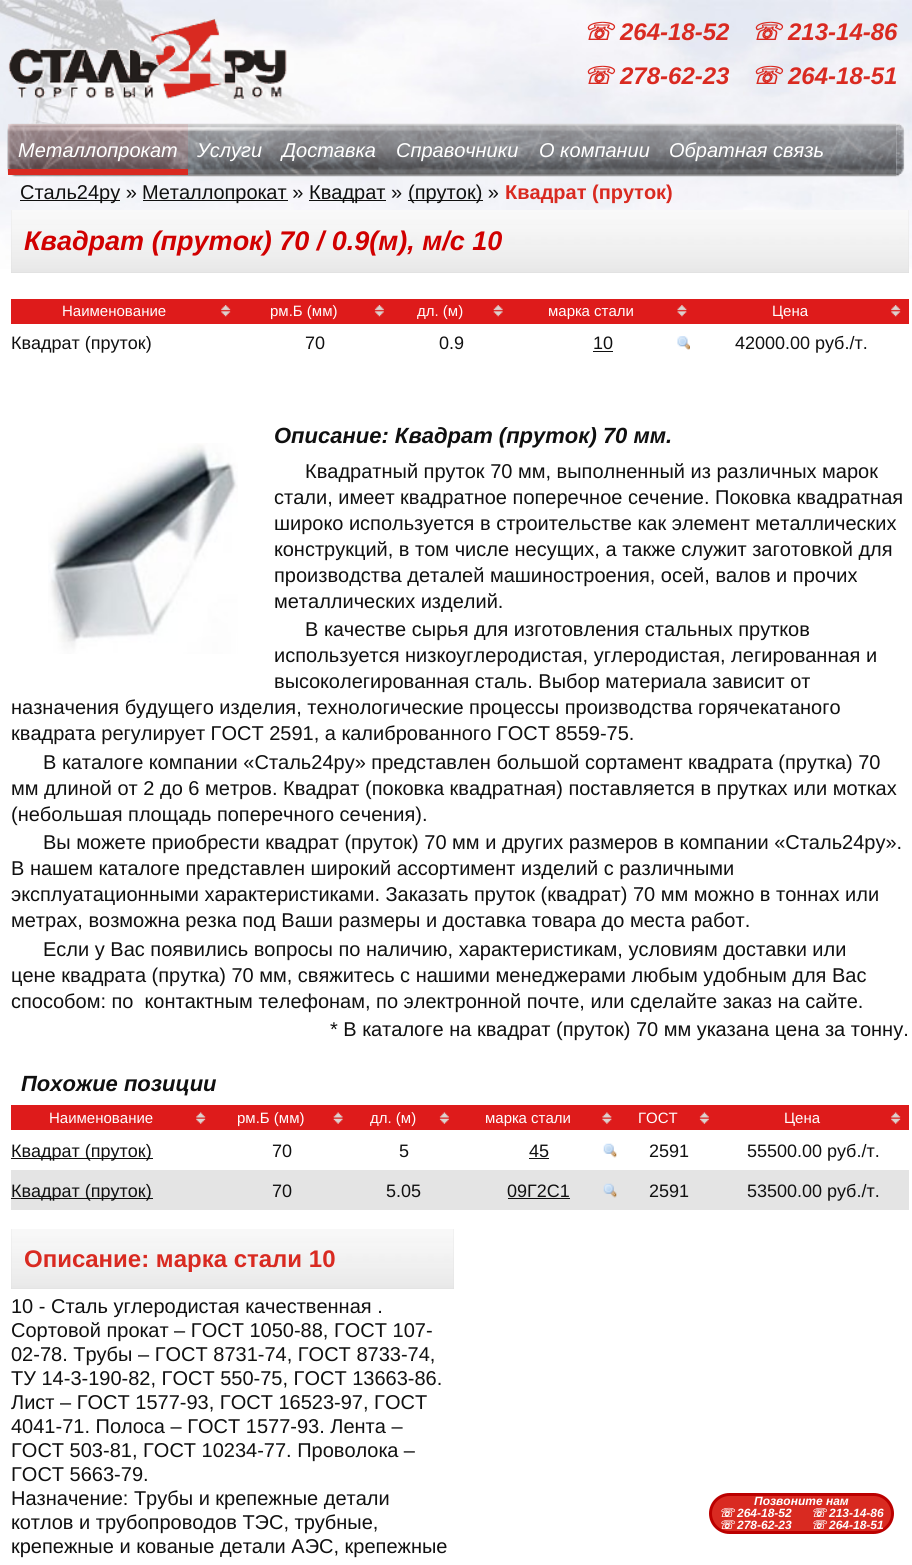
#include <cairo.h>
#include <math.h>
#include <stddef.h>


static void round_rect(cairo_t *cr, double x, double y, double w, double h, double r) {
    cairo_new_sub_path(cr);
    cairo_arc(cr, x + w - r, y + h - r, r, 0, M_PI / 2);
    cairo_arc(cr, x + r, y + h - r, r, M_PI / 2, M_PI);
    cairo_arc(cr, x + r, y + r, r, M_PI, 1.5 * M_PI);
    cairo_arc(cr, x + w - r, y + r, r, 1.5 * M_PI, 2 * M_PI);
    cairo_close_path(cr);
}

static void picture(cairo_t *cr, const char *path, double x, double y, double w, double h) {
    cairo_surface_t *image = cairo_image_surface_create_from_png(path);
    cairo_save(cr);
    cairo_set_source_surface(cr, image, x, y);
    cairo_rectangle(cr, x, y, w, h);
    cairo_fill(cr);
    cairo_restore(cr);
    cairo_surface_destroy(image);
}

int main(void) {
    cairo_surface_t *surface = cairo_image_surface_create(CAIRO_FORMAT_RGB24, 912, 1565);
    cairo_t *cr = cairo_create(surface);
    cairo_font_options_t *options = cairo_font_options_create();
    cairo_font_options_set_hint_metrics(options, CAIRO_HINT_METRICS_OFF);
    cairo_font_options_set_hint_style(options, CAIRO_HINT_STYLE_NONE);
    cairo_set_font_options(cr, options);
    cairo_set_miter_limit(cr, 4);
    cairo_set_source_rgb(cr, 1, 1, 1);
    cairo_paint(cr);
    picture(cr, "img1.png", 0, 0, 912, 269);
    picture(cr, "img2.png", 8, 18, 279, 82);
    cairo_select_font_face(cr, "DejaVu Sans", CAIRO_FONT_SLANT_ITALIC, CAIRO_FONT_WEIGHT_BOLD);
    cairo_set_font_size(cr, 24);
    cairo_set_source_rgb(cr, 0.851, 0.165, 0.129);
    cairo_move_to(cr, 583, 40);
    cairo_show_text(cr, "☏");
    cairo_select_font_face(cr, "Liberation Sans", CAIRO_FONT_SLANT_ITALIC, CAIRO_FONT_WEIGHT_BOLD);
    cairo_move_to(cr, 620, 40);
    cairo_show_text(cr, "264-18-52");
    cairo_select_font_face(cr, "DejaVu Sans", CAIRO_FONT_SLANT_ITALIC, CAIRO_FONT_WEIGHT_BOLD);
    cairo_move_to(cr, 751, 40);
    cairo_show_text(cr, "☏");
    cairo_select_font_face(cr, "Liberation Sans", CAIRO_FONT_SLANT_ITALIC, CAIRO_FONT_WEIGHT_BOLD);
    cairo_move_to(cr, 788, 40);
    cairo_show_text(cr, "213-14-86");
    cairo_select_font_face(cr, "DejaVu Sans", CAIRO_FONT_SLANT_ITALIC, CAIRO_FONT_WEIGHT_BOLD);
    cairo_move_to(cr, 583, 84);
    cairo_show_text(cr, "☏");
    cairo_select_font_face(cr, "Liberation Sans", CAIRO_FONT_SLANT_ITALIC, CAIRO_FONT_WEIGHT_BOLD);
    cairo_move_to(cr, 620, 84);
    cairo_show_text(cr, "278-62-23");
    cairo_select_font_face(cr, "DejaVu Sans", CAIRO_FONT_SLANT_ITALIC, CAIRO_FONT_WEIGHT_BOLD);
    cairo_move_to(cr, 751, 84);
    cairo_show_text(cr, "☏");
    cairo_select_font_face(cr, "Liberation Sans", CAIRO_FONT_SLANT_ITALIC, CAIRO_FONT_WEIGHT_BOLD);
    cairo_move_to(cr, 788, 84);
    cairo_show_text(cr, "264-18-51");
    picture(cr, "img3.png", 7, 123, 890, 54);
    cairo_set_source_rgba(cr, 0.863, 0.282, 0.282, 0.12);
    cairo_rectangle(cr, 8, 124, 180, 45);
    cairo_fill(cr);
    cairo_set_source_rgb(cr, 0.851, 0.165, 0.129);
    cairo_rectangle(cr, 8, 169, 180, 6);
    cairo_fill(cr);
    cairo_select_font_face(cr, "Liberation Sans", CAIRO_FONT_SLANT_ITALIC, CAIRO_FONT_WEIGHT_NORMAL);
    cairo_set_font_size(cr, 20);
    cairo_set_source_rgb(cr, 1, 1, 1);
    cairo_move_to(cr, 18, 157);
    cairo_show_text(cr, "Металлопрокат");
    cairo_move_to(cr, 197, 157);
    cairo_show_text(cr, "Услуги");
    cairo_move_to(cr, 282, 157);
    cairo_show_text(cr, "Доставка");
    cairo_move_to(cr, 396, 157);
    cairo_show_text(cr, "Справочники");
    cairo_move_to(cr, 539, 157);
    cairo_show_text(cr, "О компании");
    cairo_move_to(cr, 669, 157);
    cairo_show_text(cr, "Обратная связь");
    picture(cr, "img4.png", 896, 123, 9, 54);
    cairo_set_source_rgb(cr, 0.063, 0.063, 0.063);
    cairo_rectangle(cr, 20, 200, 100, 1);
    cairo_fill(cr);
    cairo_select_font_face(cr, "Liberation Sans", CAIRO_FONT_SLANT_NORMAL, CAIRO_FONT_WEIGHT_NORMAL);
    cairo_move_to(cr, 20, 199);
    cairo_show_text(cr, "Сталь24ру »");
    cairo_rectangle(cr, 143, 200, 145, 1);
    cairo_fill(cr);
    cairo_move_to(cr, 142, 199);
    cairo_show_text(cr, "Металлопрокат »");
    cairo_rectangle(cr, 309, 200, 77, 1);
    cairo_fill(cr);
    cairo_move_to(cr, 309, 199);
    cairo_show_text(cr, "Квадрат »");
    cairo_rectangle(cr, 408, 200, 75, 1);
    cairo_fill(cr);
    cairo_move_to(cr, 408, 199);
    cairo_show_text(cr, "(пруток) »");
    cairo_select_font_face(cr, "Liberation Sans", CAIRO_FONT_SLANT_NORMAL, CAIRO_FONT_WEIGHT_BOLD);
    cairo_set_source_rgb(cr, 0.851, 0.165, 0.129);
    cairo_move_to(cr, 505, 199);
    cairo_show_text(cr, "Квадрат (пруток)");
    cairo_set_source_rgb(cr, 0.863, 0.863, 0.863);
    cairo_rectangle(cr, 11, 210, 898, 63);
    cairo_fill(cr);
    picture(cr, "img5.png", 11, 210, 898, 63);
    cairo_select_font_face(cr, "Liberation Sans", CAIRO_FONT_SLANT_ITALIC, CAIRO_FONT_WEIGHT_BOLD);
    cairo_set_font_size(cr, 27);
    cairo_set_source_rgb(cr, 0.82, 0, 0);
    cairo_move_to(cr, 24, 250);
    cairo_show_text(cr, "Квадрат (пруток) 70 / 0.9(м), м/с 10");
    cairo_set_source_rgb(cr, 0.871, 0.106, 0.106);
    cairo_rectangle(cr, 11, 299, 898, 25);
    cairo_fill(cr);
    picture(cr, "img6.png", 221, 305, 10, 12);
    cairo_select_font_face(cr, "Liberation Sans", CAIRO_FONT_SLANT_NORMAL, CAIRO_FONT_WEIGHT_NORMAL);
    cairo_set_font_size(cr, 15);
    cairo_set_source_rgb(cr, 1, 1, 1);
    cairo_move_to(cr, 62, 316);
    cairo_show_text(cr, "Наименование");
    picture(cr, "img7.png", 374, 305, 10, 12);
    cairo_move_to(cr, 270, 316);
    cairo_show_text(cr, "рм.Б (мм)");
    picture(cr, "img8.png", 493, 305, 10, 12);
    cairo_move_to(cr, 417, 316);
    cairo_show_text(cr, "дл. (м)");
    picture(cr, "img9.png", 677, 305, 10, 12);
    cairo_move_to(cr, 548, 316);
    cairo_show_text(cr, "марка стали");
    picture(cr, "img6.png", 891, 305, 10, 12);
    cairo_move_to(cr, 772, 316);
    cairo_show_text(cr, "Цена");
    cairo_set_font_size(cr, 18);
    cairo_set_source_rgb(cr, 0.063, 0.063, 0.063);
    cairo_move_to(cr, 11, 349);
    cairo_show_text(cr, "Квадрат (пруток)");
    cairo_move_to(cr, 305, 349);
    cairo_show_text(cr, "70");
    cairo_move_to(cr, 439, 349);
    cairo_show_text(cr, "0.9");
    picture(cr, "img10.png", 677, 336, 13, 14);
    cairo_move_to(cr, 593, 349);
    cairo_show_text(cr, "10");
    cairo_rectangle(cr, 593, 351, 20, 1);
    cairo_fill(cr);
    cairo_move_to(cr, 735, 349);
    cairo_show_text(cr, "42000.00 руб./т.");
    cairo_select_font_face(cr, "Liberation Sans", CAIRO_FONT_SLANT_ITALIC, CAIRO_FONT_WEIGHT_BOLD);
    cairo_set_font_size(cr, 22);
    cairo_move_to(cr, 274, 443);
    cairo_show_text(cr, "Описание: Квадрат (пруток) 70 мм.");
    picture(cr, "img11.png", 48, 443, 190, 211);
    cairo_select_font_face(cr, "Liberation Sans", CAIRO_FONT_SLANT_NORMAL, CAIRO_FONT_WEIGHT_NORMAL);
    cairo_set_font_size(cr, 20);
    cairo_move_to(cr, 305, 478);
    cairo_show_text(cr, "Квадратный пруток 70 мм, выполненный из различных марок");
    cairo_move_to(cr, 274, 504);
    cairo_show_text(cr, "стали, имеет квадратное поперечное сечение. Поковка квадратная");
    cairo_move_to(cr, 274, 530);
    cairo_show_text(cr, "широко используется в строительстве как элемент металлических");
    cairo_move_to(cr, 274, 556);
    cairo_show_text(cr, "конструкций, в том числе несущих, а также служит заготовкой для");
    cairo_move_to(cr, 274, 582);
    cairo_show_text(cr, "производства деталей машиностроения, осей, валов и прочих");
    cairo_move_to(cr, 274, 608);
    cairo_show_text(cr, "металлических изделий.");
    cairo_move_to(cr, 305, 636);
    cairo_show_text(cr, "В качестве сырья для изготовления стальных прутков");
    cairo_move_to(cr, 274, 662);
    cairo_show_text(cr, "используется низкоуглеродистая, углеродистая, легированная и");
    cairo_move_to(cr, 274, 688);
    cairo_show_text(cr, "высоколегированная сталь. Выбор материала зависит от");
    cairo_move_to(cr, 11, 714);
    cairo_show_text(cr, "назначения будущего изделия, технологические процессы производства горячекатаного");
    cairo_move_to(cr, 11, 740);
    cairo_show_text(cr, "квадрата регулирует ГОСТ 2591, а калиброванного ГОСТ 8559-75.");
    cairo_move_to(cr, 43, 769);
    cairo_show_text(cr, "В каталоге компании «Сталь24ру» представлен большой сортамент квадрата (прутка) 70");
    cairo_move_to(cr, 11, 795);
    cairo_show_text(cr, "мм длиной от 2 до 6 метров. Квадрат (поковка квадратная) поставляется в прутках или мотках");
    cairo_move_to(cr, 11, 821);
    cairo_show_text(cr, "(небольшая площадь поперечного сечения).");
    cairo_move_to(cr, 43, 849);
    cairo_show_text(cr, "Вы можете приобрести квадрат (пруток) 70 мм и других размеров в компании «Сталь24ру».");
    cairo_move_to(cr, 11, 875);
    cairo_show_text(cr, "В нашем каталоге представлен широкий ассортимент изделий с различными");
    cairo_move_to(cr, 11, 901);
    cairo_show_text(cr, "эксплуатационными характеристиками. Заказать пруток (квадрат) 70 мм можно в тоннах или");
    cairo_move_to(cr, 11, 927);
    cairo_show_text(cr, "метрах, возможна резка под Ваши размеры и доставка товара до места работ.");
    cairo_move_to(cr, 43, 956);
    cairo_show_text(cr, "Если у Вас появились вопросы по наличию, характеристикам, условиям доставки или");
    cairo_move_to(cr, 11, 982);
    cairo_show_text(cr, "цене квадрата (прутка) 70 мм, свяжитесь с нашими менеджерами любым удобным для Вас");
    cairo_move_to(cr, 11, 1008);
    cairo_show_text(cr, "способом: по  контактным телефонам, по электронной почте, или сделайте заказ на сайте.");
    cairo_move_to(cr, 330, 1036);
    cairo_show_text(cr, "* В каталоге на квадрат (пруток) 70 мм указана цена за тонну.");
    cairo_select_font_face(cr, "Liberation Sans", CAIRO_FONT_SLANT_ITALIC, CAIRO_FONT_WEIGHT_BOLD);
    cairo_set_font_size(cr, 22);
    cairo_move_to(cr, 21, 1091);
    cairo_show_text(cr, "Похожие позиции");
    cairo_set_source_rgb(cr, 0.871, 0.106, 0.106);
    cairo_rectangle(cr, 11, 1105, 898, 25);
    cairo_fill(cr);
    picture(cr, "img12.png", 196, 1112, 10, 12);
    cairo_select_font_face(cr, "Liberation Sans", CAIRO_FONT_SLANT_NORMAL, CAIRO_FONT_WEIGHT_NORMAL);
    cairo_set_font_size(cr, 15);
    cairo_set_source_rgb(cr, 1, 1, 1);
    cairo_move_to(cr, 49, 1123);
    cairo_show_text(cr, "Наименование");
    picture(cr, "img13.png", 333, 1112, 10, 12);
    cairo_move_to(cr, 237, 1123);
    cairo_show_text(cr, "рм.Б (мм)");
    picture(cr, "img14.png", 439, 1112, 10, 12);
    cairo_move_to(cr, 370, 1123);
    cairo_show_text(cr, "дл. (м)");
    picture(cr, "img15.png", 602, 1112, 10, 12);
    cairo_move_to(cr, 485, 1123);
    cairo_show_text(cr, "марка стали");
    picture(cr, "img14.png", 699, 1112, 10, 12);
    cairo_move_to(cr, 638, 1123);
    cairo_show_text(cr, "ГОСТ");
    picture(cr, "img12.png", 891, 1112, 10, 12);
    cairo_move_to(cr, 784, 1123);
    cairo_show_text(cr, "Цена");
    cairo_set_source_rgb(cr, 0.063, 0.063, 0.063);
    cairo_rectangle(cr, 11, 1158, 142, 1);
    cairo_fill(cr);
    cairo_set_font_size(cr, 18);
    cairo_move_to(cr, 11, 1157);
    cairo_show_text(cr, "Квадрат (пруток)");
    cairo_move_to(cr, 272, 1157);
    cairo_show_text(cr, "70");
    cairo_move_to(cr, 399, 1157);
    cairo_show_text(cr, "5");
    picture(cr, "img16.png", 603, 1143, 14, 15);
    cairo_move_to(cr, 529, 1157);
    cairo_show_text(cr, "45");
    cairo_rectangle(cr, 529, 1158, 20, 1);
    cairo_fill(cr);
    cairo_move_to(cr, 649, 1157);
    cairo_show_text(cr, "2591");
    cairo_move_to(cr, 747, 1157);
    cairo_show_text(cr, "55500.00 руб./т.");
    cairo_set_source_rgb(cr, 0.894, 0.894, 0.894);
    cairo_rectangle(cr, 11, 1170, 898, 40);
    cairo_fill(cr);
    cairo_set_source_rgb(cr, 0.063, 0.063, 0.063);
    cairo_rectangle(cr, 11, 1198, 142, 1);
    cairo_fill(cr);
    cairo_move_to(cr, 11, 1197);
    cairo_show_text(cr, "Квадрат (пруток)");
    cairo_move_to(cr, 272, 1197);
    cairo_show_text(cr, "70");
    cairo_move_to(cr, 386, 1197);
    cairo_show_text(cr, "5.05");
    picture(cr, "img17.png", 603, 1183, 14, 15);
    cairo_move_to(cr, 507, 1197);
    cairo_show_text(cr, "09Г2С1");
    cairo_rectangle(cr, 508, 1198, 62, 1);
    cairo_fill(cr);
    cairo_move_to(cr, 649, 1197);
    cairo_show_text(cr, "2591");
    cairo_move_to(cr, 747, 1197);
    cairo_show_text(cr, "53500.00 руб./т.");
    cairo_set_source_rgb(cr, 0.863, 0.863, 0.863);
    cairo_rectangle(cr, 11, 1229, 443, 60);
    cairo_fill(cr);
    picture(cr, "img18.png", 11, 1229, 443, 60);
    cairo_select_font_face(cr, "Liberation Sans", CAIRO_FONT_SLANT_NORMAL, CAIRO_FONT_WEIGHT_BOLD);
    cairo_set_font_size(cr, 24);
    cairo_set_source_rgb(cr, 0.851, 0.165, 0.129);
    cairo_move_to(cr, 24, 1267);
    cairo_show_text(cr, "Описание: марка стали 10");
    cairo_select_font_face(cr, "Liberation Sans", CAIRO_FONT_SLANT_NORMAL, CAIRO_FONT_WEIGHT_NORMAL);
    cairo_set_font_size(cr, 20);
    cairo_set_source_rgb(cr, 0.063, 0.063, 0.063);
    cairo_move_to(cr, 11, 1313);
    cairo_show_text(cr, "10 - Сталь углеродистая качественная .");
    cairo_move_to(cr, 11, 1337);
    cairo_show_text(cr, "Сортовой прокат – ГОСТ 1050-88, ГОСТ 107-");
    cairo_move_to(cr, 11, 1361);
    cairo_show_text(cr, "02-78. Трубы – ГОСТ 8731-74, ГОСТ 8733-74,");
    cairo_move_to(cr, 11, 1385);
    cairo_show_text(cr, "ТУ 14-3-190-82, ГОСТ 550-75, ГОСТ 13663-86.");
    cairo_move_to(cr, 11, 1409);
    cairo_show_text(cr, "Лист – ГОСТ 1577-93, ГОСТ 16523-97, ГОСТ");
    cairo_move_to(cr, 11, 1433);
    cairo_show_text(cr, "4041-71. Полоса – ГОСТ 1577-93. Лента –");
    cairo_move_to(cr, 11, 1457);
    cairo_show_text(cr, "ГОСТ 503-81, ГОСТ 10234-77. Проволока –");
    cairo_move_to(cr, 11, 1481);
    cairo_show_text(cr, "ГОСТ 5663-79.");
    cairo_move_to(cr, 11, 1505);
    cairo_show_text(cr, "Назначение: Трубы и крепежные детали");
    cairo_move_to(cr, 11, 1529);
    cairo_show_text(cr, "котлов и трубопроводов ТЭС, трубные,");
    cairo_move_to(cr, 11, 1553);
    cairo_show_text(cr, "крепежные и кованые детали АЭС, крепежные");
    cairo_set_source_rgb(cr, 0.851, 0.165, 0.129);
    round_rect(cr, 710.5, 1494.5, 182, 38, 19);
    cairo_fill_preserve(cr);
    cairo_set_source_rgb(cr, 0.733, 0, 0);
    cairo_set_line_width(cr, 3);
    cairo_stroke(cr);
    cairo_select_font_face(cr, "Liberation Sans", CAIRO_FONT_SLANT_ITALIC, CAIRO_FONT_WEIGHT_BOLD);
    cairo_set_font_size(cr, 12);
    cairo_set_source_rgb(cr, 1, 1, 1);
    cairo_move_to(cr, 754, 1505);
    cairo_show_text(cr, "Позвоните нам");
    cairo_select_font_face(cr, "DejaVu Sans", CAIRO_FONT_SLANT_ITALIC, CAIRO_FONT_WEIGHT_BOLD);
    cairo_move_to(cr, 719, 1517);
    cairo_show_text(cr, "☏");
    cairo_select_font_face(cr, "Liberation Sans", CAIRO_FONT_SLANT_ITALIC, CAIRO_FONT_WEIGHT_BOLD);
    cairo_move_to(cr, 737, 1517);
    cairo_show_text(cr, "264-18-52");
    cairo_select_font_face(cr, "DejaVu Sans", CAIRO_FONT_SLANT_ITALIC, CAIRO_FONT_WEIGHT_BOLD);
    cairo_move_to(cr, 811, 1517);
    cairo_show_text(cr, "☏");
    cairo_select_font_face(cr, "Liberation Sans", CAIRO_FONT_SLANT_ITALIC, CAIRO_FONT_WEIGHT_BOLD);
    cairo_move_to(cr, 829, 1517);
    cairo_show_text(cr, "213-14-86");
    cairo_select_font_face(cr, "DejaVu Sans", CAIRO_FONT_SLANT_ITALIC, CAIRO_FONT_WEIGHT_BOLD);
    cairo_move_to(cr, 719, 1529);
    cairo_show_text(cr, "☏");
    cairo_select_font_face(cr, "Liberation Sans", CAIRO_FONT_SLANT_ITALIC, CAIRO_FONT_WEIGHT_BOLD);
    cairo_move_to(cr, 737, 1529);
    cairo_show_text(cr, "278-62-23");
    cairo_select_font_face(cr, "DejaVu Sans", CAIRO_FONT_SLANT_ITALIC, CAIRO_FONT_WEIGHT_BOLD);
    cairo_move_to(cr, 811, 1529);
    cairo_show_text(cr, "☏");
    cairo_select_font_face(cr, "Liberation Sans", CAIRO_FONT_SLANT_ITALIC, CAIRO_FONT_WEIGHT_BOLD);
    cairo_move_to(cr, 829, 1529);
    cairo_show_text(cr, "264-18-51");
    cairo_surface_write_to_png(surface, "page.png");
    cairo_font_options_destroy(options);
    cairo_destroy(cr);
    cairo_surface_destroy(surface);
    return 0;
}
